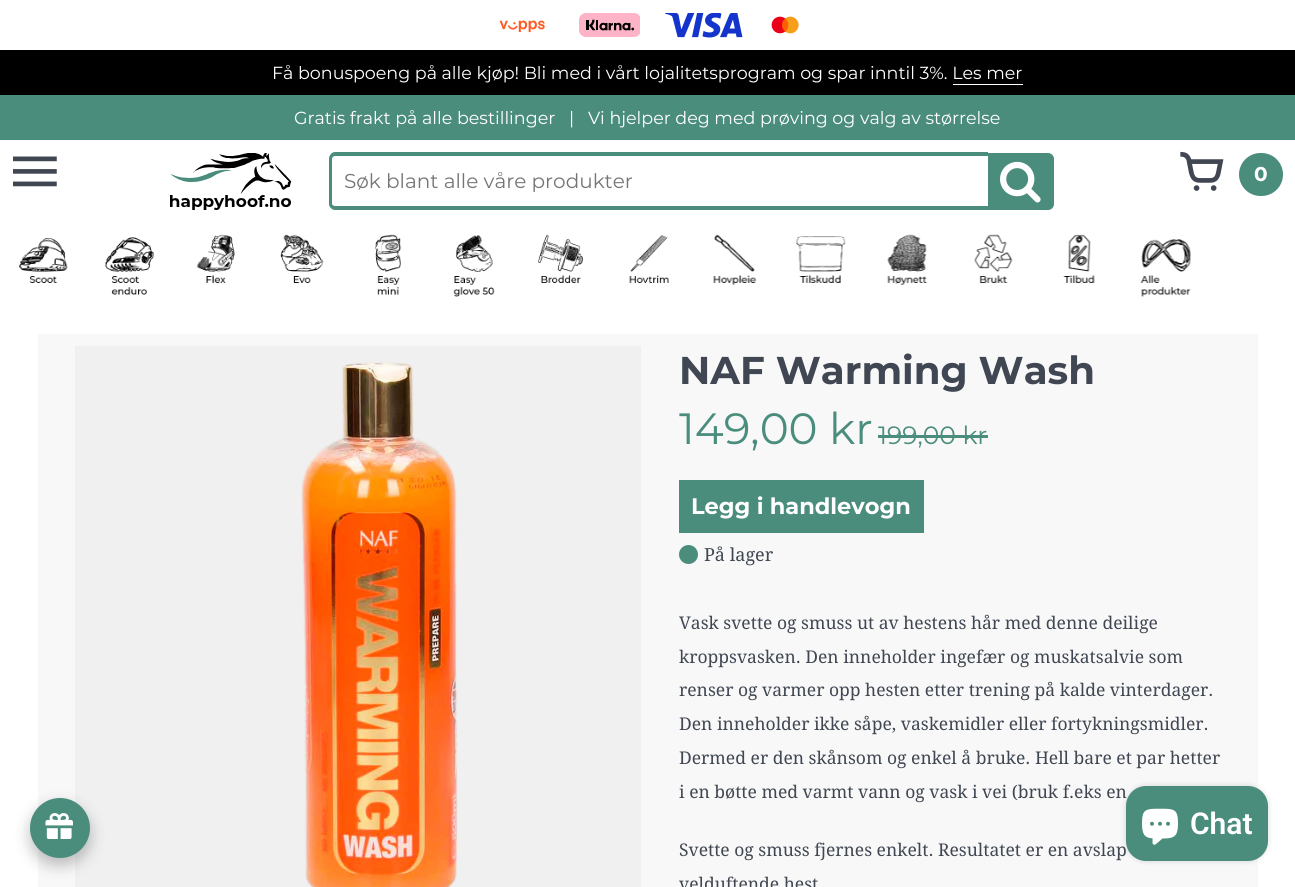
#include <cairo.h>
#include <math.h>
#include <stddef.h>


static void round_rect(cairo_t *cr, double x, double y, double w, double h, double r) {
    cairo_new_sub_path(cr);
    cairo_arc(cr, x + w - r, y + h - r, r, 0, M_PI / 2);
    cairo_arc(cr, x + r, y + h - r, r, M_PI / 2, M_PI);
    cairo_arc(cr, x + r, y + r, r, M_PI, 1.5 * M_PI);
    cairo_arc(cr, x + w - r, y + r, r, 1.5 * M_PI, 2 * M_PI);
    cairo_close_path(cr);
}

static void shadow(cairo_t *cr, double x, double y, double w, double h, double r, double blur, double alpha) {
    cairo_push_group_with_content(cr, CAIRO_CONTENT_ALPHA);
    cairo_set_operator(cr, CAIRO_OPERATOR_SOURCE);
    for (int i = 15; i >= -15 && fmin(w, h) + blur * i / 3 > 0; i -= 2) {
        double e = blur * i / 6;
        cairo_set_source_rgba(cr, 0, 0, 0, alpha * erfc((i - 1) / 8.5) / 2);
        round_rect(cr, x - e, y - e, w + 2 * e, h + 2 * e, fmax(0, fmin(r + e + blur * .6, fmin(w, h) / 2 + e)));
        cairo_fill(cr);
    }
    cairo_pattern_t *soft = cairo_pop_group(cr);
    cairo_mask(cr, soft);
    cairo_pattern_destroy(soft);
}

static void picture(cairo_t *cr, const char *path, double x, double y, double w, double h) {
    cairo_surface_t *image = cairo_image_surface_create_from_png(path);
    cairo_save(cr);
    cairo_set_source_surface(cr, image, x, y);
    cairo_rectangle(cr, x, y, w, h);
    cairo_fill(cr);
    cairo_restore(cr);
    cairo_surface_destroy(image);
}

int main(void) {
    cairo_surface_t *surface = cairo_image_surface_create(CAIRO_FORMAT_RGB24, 1295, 887);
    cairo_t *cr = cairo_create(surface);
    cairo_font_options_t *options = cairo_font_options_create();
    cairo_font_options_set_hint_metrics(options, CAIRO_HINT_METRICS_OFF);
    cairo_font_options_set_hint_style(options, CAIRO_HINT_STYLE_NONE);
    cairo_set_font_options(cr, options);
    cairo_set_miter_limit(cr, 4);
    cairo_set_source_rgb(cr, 1, 1, 1);
    cairo_paint(cr);
    picture(cr, "img1.png", 499, 20, 46, 13);
    picture(cr, "img2.png", 579, 13, 61, 24);
    picture(cr, "img3.png", 665, 13, 78, 25);
    picture(cr, "img4.png", 771, 16, 28, 18);
    cairo_set_source_rgb(cr, 0, 0, 0);
    cairo_rectangle(cr, 0, 50, 1295, 45);
    cairo_fill(cr);
    cairo_select_font_face(cr, "Montserrat", CAIRO_FONT_SLANT_NORMAL, CAIRO_FONT_WEIGHT_NORMAL);
    cairo_set_font_size(cr, 17.5);
    cairo_set_source_rgb(cr, 1, 1, 1);
    cairo_move_to(cr, 272, 79);
    cairo_show_text(cr, "Få bonuspoeng på alle kjøp! Bli med i vårt lojalitetsprogram og spar inntil 3%. Les mer");
    cairo_rectangle(cr, 953, 84, 70, 1);
    cairo_fill(cr);
    cairo_set_source_rgb(cr, 0.294, 0.553, 0.49);
    cairo_rectangle(cr, 0, 95, 1295, 45);
    cairo_fill(cr);
    cairo_set_source_rgb(cr, 1, 1, 1);
    cairo_move_to(cr, 294, 124);
    cairo_show_text(cr, "Gratis frakt på alle bestillinger   |   Vi hjelper deg med prøving og valg av størrelse");
    cairo_select_font_face(cr, "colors", CAIRO_FONT_SLANT_NORMAL, CAIRO_FONT_WEIGHT_NORMAL);
    cairo_set_font_size(cr, 43.75);
    cairo_set_source_rgb(cr, 0.251, 0.278, 0.322);
    cairo_move_to(cr, 13, 196);
    cairo_show_text(cr, "1");
    picture(cr, "img5.png", 170, 153, 121, 57);
    cairo_set_source_rgb(cr, 0.294, 0.553, 0.49);
    cairo_set_fill_rule(cr, CAIRO_FILL_RULE_EVEN_ODD);
    cairo_new_path(cr);
    cairo_move_to(cr, 335, 152);
    cairo_line_to(cr, 988, 152);
    cairo_line_to(cr, 988, 210);
    cairo_line_to(cr, 335, 210);
    cairo_curve_to(cr, 332, 210, 329, 207, 329, 204);
    cairo_line_to(cr, 329, 159);
    cairo_curve_to(cr, 329, 155, 332, 152, 335, 152);
    cairo_close_path(cr);
    cairo_move_to(cr, 335, 156);
    cairo_line_to(cr, 988, 156);
    cairo_line_to(cr, 988, 206);
    cairo_line_to(cr, 335, 206);
    cairo_curve_to(cr, 334, 206, 332, 205, 332, 204);
    cairo_line_to(cr, 332, 159);
    cairo_curve_to(cr, 332, 157, 334, 156, 335, 156);
    cairo_close_path(cr);
    cairo_fill(cr);
    cairo_select_font_face(cr, "Montserrat", CAIRO_FONT_SLANT_NORMAL, CAIRO_FONT_WEIGHT_NORMAL);
    cairo_set_font_size(cr, 20);
    cairo_set_source_rgb(cr, 0.459, 0.459, 0.459);
    cairo_move_to(cr, 344, 188);
    cairo_show_text(cr, "Søk blant alle våre produkter");
    cairo_set_source_rgb(cr, 0.294, 0.553, 0.49);
    cairo_new_path(cr);
    cairo_move_to(cr, 988.5, 153.5);
    cairo_line_to(cr, 1048, 153.5);
    cairo_curve_to(cr, 1051, 153.5, 1053.5, 156, 1053.5, 159);
    cairo_line_to(cr, 1053.5, 204);
    cairo_curve_to(cr, 1053.5, 207, 1051, 209.5, 1048, 209.5);
    cairo_line_to(cr, 988.5, 209.5);
    cairo_close_path(cr);
    cairo_fill_preserve(cr);
    cairo_set_line_width(cr, 1);
    cairo_stroke(cr);
    picture(cr, "img6.png", 1000, 161, 41, 42);
    cairo_select_font_face(cr, "colors", CAIRO_FONT_SLANT_NORMAL, CAIRO_FONT_WEIGHT_NORMAL);
    cairo_set_font_size(cr, 43.75);
    cairo_set_source_rgb(cr, 0.251, 0.278, 0.322);
    cairo_move_to(cr, 1180, 196);
    cairo_show_text(cr, "3");
    cairo_set_source_rgb(cr, 0.294, 0.553, 0.49);
    round_rect(cr, 1239, 153, 44, 43, 21.5);
    cairo_fill(cr);
    cairo_select_font_face(cr, "Montserrat", CAIRO_FONT_SLANT_NORMAL, CAIRO_FONT_WEIGHT_BOLD);
    cairo_set_font_size(cr, 20);
    cairo_set_source_rgb(cr, 1, 1, 1);
    cairo_move_to(cr, 1254, 181);
    cairo_show_text(cr, "0");
    picture(cr, "img7.png", 19, 238, 49, 45);
    picture(cr, "img8.png", 105, 237, 49, 58);
    picture(cr, "img9.png", 196, 234, 39, 49);
    picture(cr, "img10.png", 280, 234, 44, 49);
    picture(cr, "img11.png", 375, 234, 26, 61);
    picture(cr, "img12.png", 453, 235, 42, 62);
    picture(cr, "img13.png", 538, 234, 45, 49);
    picture(cr, "img14.png", 629, 235, 40, 48);
    picture(cr, "img15.png", 713, 234, 44, 51);
    picture(cr, "img16.png", 796, 236, 50, 47);
    picture(cr, "img17.png", 887, 234, 41, 51);
    picture(cr, "img18.png", 974, 234, 39, 49);
    picture(cr, "img19.png", 1063, 234, 32, 49);
    picture(cr, "img20.png", 1140, 239, 51, 58);
    cairo_set_source_rgb(cr, 0.969, 0.969, 0.969);
    cairo_rectangle(cr, 38, 334, 1220, 553);
    cairo_fill(cr);
    cairo_set_source_rgb(cr, 0.941, 0.941, 0.941);
    cairo_rectangle(cr, 75, 346, 566, 541);
    cairo_fill(cr);
    cairo_set_source_rgb(cr, 0, 0, 0);
    shadow(cr, 30, 805, 60, 60, 30, 7.5, 0.25);
    cairo_set_source_rgb(cr, 0.294, 0.553, 0.49);
    cairo_arc(cr, 60, 828, 30, 0, 2 * M_PI);
    cairo_fill(cr);
    picture(cr, "img21.png", 45, 813, 28, 26);
    picture(cr, "img22.png", 301, 362, 157, 525);
    cairo_set_font_size(cr, 38.75);
    cairo_set_source_rgb(cr, 0.251, 0.278, 0.322);
    cairo_move_to(cr, 679, 384);
    cairo_show_text(cr, "NAF Warming Wash");
    cairo_select_font_face(cr, "Montserrat", CAIRO_FONT_SLANT_NORMAL, CAIRO_FONT_WEIGHT_NORMAL);
    cairo_set_font_size(cr, 43.75);
    cairo_set_source_rgb(cr, 0.294, 0.553, 0.49);
    cairo_move_to(cr, 679, 444);
    cairo_show_text(cr, "149,00 kr");
    cairo_set_font_size(cr, 25);
    cairo_move_to(cr, 878, 444);
    cairo_show_text(cr, "199,00 kr");
    cairo_rectangle(cr, 878, 435, 110, 3);
    cairo_fill(cr);
    cairo_rectangle(cr, 679, 480, 245, 53);
    cairo_fill(cr);
    cairo_select_font_face(cr, "Montserrat", CAIRO_FONT_SLANT_NORMAL, CAIRO_FONT_WEIGHT_BOLD);
    cairo_set_font_size(cr, 22.5);
    cairo_set_source_rgb(cr, 1, 1, 1);
    cairo_move_to(cr, 691, 514);
    cairo_show_text(cr, "Legg i handlevogn");
    cairo_set_source_rgb(cr, 0.294, 0.553, 0.49);
    cairo_new_path(cr);
    cairo_arc(cr, 688.5, 554.5, 9.5, 0, 2 * M_PI);
    cairo_fill(cr);
    cairo_select_font_face(cr, "Droid Serif", CAIRO_FONT_SLANT_NORMAL, CAIRO_FONT_WEIGHT_NORMAL);
    cairo_set_font_size(cr, 18);
    cairo_set_source_rgb(cr, 0.251, 0.278, 0.322);
    cairo_move_to(cr, 704, 561);
    cairo_show_text(cr, "På lager");
    cairo_set_font_size(cr, 17.5);
    cairo_move_to(cr, 679, 629);
    cairo_show_text(cr, "Vask svette og smuss ut av hestens hår med denne deilige");
    cairo_move_to(cr, 679, 663);
    cairo_show_text(cr, "kroppsvasken. Den inneholder ingefær og muskatsalvie som");
    cairo_move_to(cr, 679, 696);
    cairo_show_text(cr, "renser og varmer opp hesten etter trening på kalde vinterdager.");
    cairo_move_to(cr, 679, 730);
    cairo_show_text(cr, "Den inneholder ikke såpe, vaskemidler eller fortykningsmidler.");
    cairo_move_to(cr, 679, 764);
    cairo_show_text(cr, "Dermed er den skånsom og enkel å bruke. Hell bare et par hetter");
    cairo_move_to(cr, 679, 798);
    cairo_show_text(cr, "i en bøtte med varmt vann og vask i vei (bruk f.eks en");
    cairo_move_to(cr, 679, 856);
    cairo_show_text(cr, "Svette og smuss fjernes enkelt. Resultatet er en avslap");
    cairo_move_to(cr, 679, 890);
    cairo_show_text(cr, "velduftende hest");
    cairo_set_source_rgb(cr, 0, 0, 0);
    shadow(cr, 1126, 786, 142, 75, 20, 3, 0.15);
    cairo_set_source_rgb(cr, 0.294, 0.553, 0.49);
    round_rect(cr, 1126, 786, 142, 75, 20);
    cairo_fill(cr);
    picture(cr, "img23.png", 1142, 808, 36, 37);
    cairo_select_font_face(cr, "Roboto SemiBold", CAIRO_FONT_SLANT_NORMAL, CAIRO_FONT_WEIGHT_NORMAL);
    cairo_set_font_size(cr, 30);
    cairo_set_source_rgb(cr, 1, 1, 1);
    cairo_move_to(cr, 1190, 834);
    cairo_show_text(cr, "Chat");
    cairo_surface_write_to_png(surface, "page.png");
    cairo_font_options_destroy(options);
    cairo_destroy(cr);
    cairo_surface_destroy(surface);
    return 0;
}
